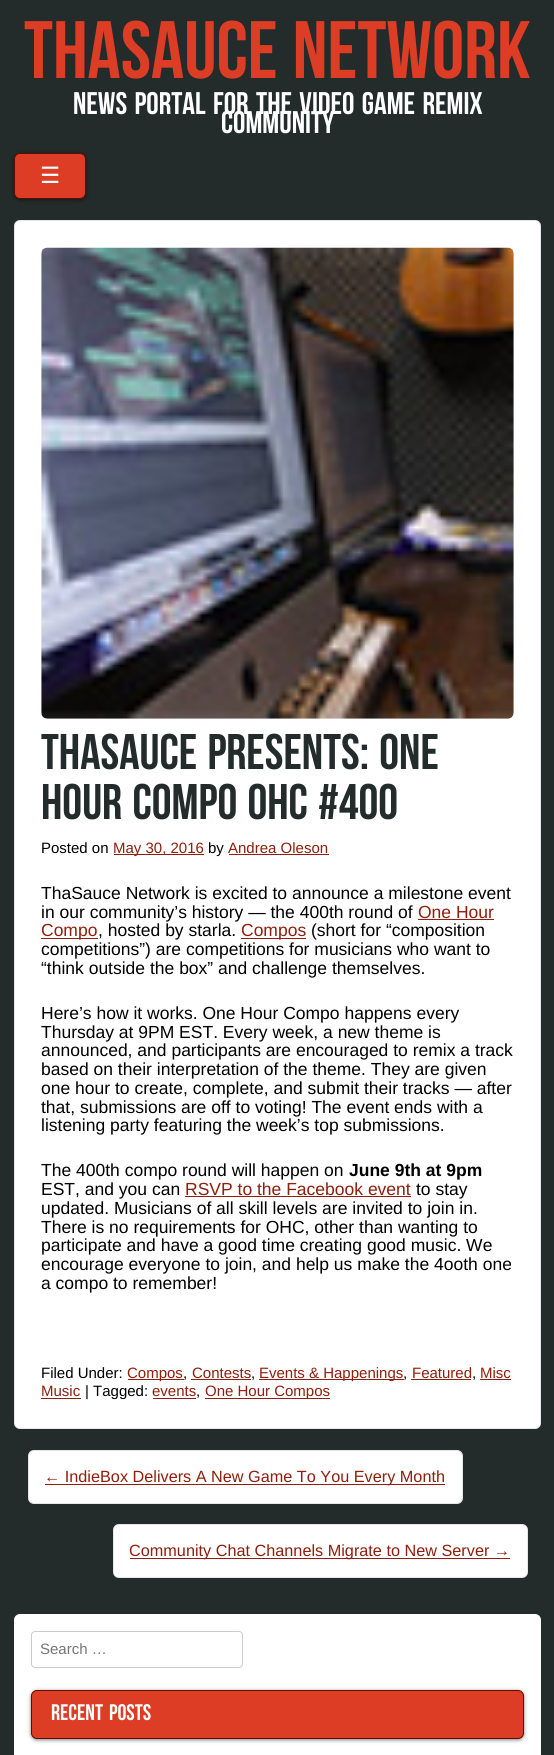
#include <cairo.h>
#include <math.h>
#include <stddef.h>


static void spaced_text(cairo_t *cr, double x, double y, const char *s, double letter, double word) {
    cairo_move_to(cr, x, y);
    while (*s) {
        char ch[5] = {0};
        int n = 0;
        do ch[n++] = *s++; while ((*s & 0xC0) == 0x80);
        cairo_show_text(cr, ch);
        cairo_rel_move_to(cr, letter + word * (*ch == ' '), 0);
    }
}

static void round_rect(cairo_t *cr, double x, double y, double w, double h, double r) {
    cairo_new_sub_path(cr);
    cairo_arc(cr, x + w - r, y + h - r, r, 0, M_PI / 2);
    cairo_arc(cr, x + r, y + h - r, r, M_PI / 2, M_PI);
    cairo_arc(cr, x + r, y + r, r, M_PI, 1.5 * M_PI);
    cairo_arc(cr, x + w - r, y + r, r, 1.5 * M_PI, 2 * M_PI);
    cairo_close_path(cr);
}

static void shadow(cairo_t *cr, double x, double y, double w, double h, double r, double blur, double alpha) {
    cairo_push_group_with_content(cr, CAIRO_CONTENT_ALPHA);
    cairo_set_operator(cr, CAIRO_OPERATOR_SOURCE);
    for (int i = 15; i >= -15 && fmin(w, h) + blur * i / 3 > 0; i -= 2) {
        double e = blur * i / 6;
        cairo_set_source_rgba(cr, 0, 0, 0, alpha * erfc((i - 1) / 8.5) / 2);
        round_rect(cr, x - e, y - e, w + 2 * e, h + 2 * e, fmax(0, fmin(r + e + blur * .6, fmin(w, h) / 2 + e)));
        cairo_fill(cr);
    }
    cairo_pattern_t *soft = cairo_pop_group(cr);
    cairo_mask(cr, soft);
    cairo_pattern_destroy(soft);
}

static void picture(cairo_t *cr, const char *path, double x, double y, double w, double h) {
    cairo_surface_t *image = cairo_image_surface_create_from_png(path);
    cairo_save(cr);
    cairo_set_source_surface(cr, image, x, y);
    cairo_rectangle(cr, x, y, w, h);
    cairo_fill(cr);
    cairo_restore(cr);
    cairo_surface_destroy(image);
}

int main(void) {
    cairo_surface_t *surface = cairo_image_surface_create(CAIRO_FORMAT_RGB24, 554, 1755);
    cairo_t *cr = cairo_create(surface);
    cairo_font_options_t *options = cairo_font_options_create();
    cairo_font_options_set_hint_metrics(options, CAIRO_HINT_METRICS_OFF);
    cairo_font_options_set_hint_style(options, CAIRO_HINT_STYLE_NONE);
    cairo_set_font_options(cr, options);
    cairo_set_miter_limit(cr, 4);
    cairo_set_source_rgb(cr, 0.137, 0.169, 0.169);
    cairo_paint(cr);
    cairo_select_font_face(cr, "Bebas Neue", CAIRO_FONT_SLANT_NORMAL, CAIRO_FONT_WEIGHT_NORMAL);
    cairo_set_font_size(cr, 81.25);
    cairo_set_source_rgb(cr, 0.863, 0.239, 0.141);
    spaced_text(cr, 24, 78, "THASAUCE NETWORK", 0, 2.5);
    cairo_set_font_size(cr, 31.25);
    cairo_set_source_rgb(cr, 1, 1, 1);
    spaced_text(cr, 73, 114, "NEWS PORTAL FOR THE VIDEO GAME REMIX", 0, 2.5);
    cairo_move_to(cr, 221, 133);
    cairo_show_text(cr, "COMMUNITY");
    cairo_set_source_rgb(cr, 0, 0, 0);
    shadow(cr, 14, 154, 72, 46, 6, 2, 0.5);
    cairo_set_source_rgb(cr, 0.863, 0.239, 0.141);
    round_rect(cr, 14.5, 153.5, 71, 45, 5.5);
    cairo_fill_preserve(cr);
    cairo_set_source_rgb(cr, 0.369, 0.051, 0);
    cairo_set_line_width(cr, 1);
    cairo_stroke(cr);
    cairo_select_font_face(cr, "DejaVu Sans", CAIRO_FONT_SLANT_NORMAL, CAIRO_FONT_WEIGHT_NORMAL);
    cairo_set_font_size(cr, 22.5);
    cairo_set_source_rgb(cr, 1, 1, 1);
    cairo_move_to(cr, 40, 183);
    cairo_show_text(cr, "☰");
    round_rect(cr, 14, 220, 527, 1209, 6);
    cairo_fill(cr);
    round_rect(cr, 14.5, 220.5, 526, 1208, 5.5);
    cairo_set_source_rgba(cr, 0, 0, 0, 0.1);
    cairo_stroke(cr);
    picture(cr, "img1.png", 41, 247, 473, 472);
    cairo_select_font_face(cr, "Bebas Neue", CAIRO_FONT_SLANT_NORMAL, CAIRO_FONT_WEIGHT_NORMAL);
    cairo_set_font_size(cr, 50);
    cairo_set_source_rgb(cr, 0.137, 0.169, 0.169);
    spaced_text(cr, 41, 769, "THASAUCE PRESENTS: ONE", 0, 2.5);
    spaced_text(cr, 41, 819, "HOUR COMPO OHC #400", 0, 2.5);
    cairo_select_font_face(cr, "Liberation Sans", CAIRO_FONT_SLANT_NORMAL, CAIRO_FONT_WEIGHT_NORMAL);
    cairo_set_font_size(cr, 15);
    cairo_set_source_rgb(cr, 0, 0, 0);
    cairo_move_to(cr, 41, 853);
    cairo_show_text(cr, "Posted on");
    cairo_set_source_rgb(cr, 0.561, 0.118, 0.047);
    cairo_rectangle(cr, 114, 854, 90, 1);
    cairo_fill(cr);
    cairo_move_to(cr, 113, 853);
    cairo_show_text(cr, "May 30, 2016");
    cairo_set_source_rgb(cr, 0, 0, 0);
    cairo_move_to(cr, 208, 853);
    cairo_show_text(cr, "by");
    cairo_set_source_rgb(cr, 0.561, 0.118, 0.047);
    cairo_move_to(cr, 228, 853);
    cairo_show_text(cr, "Andrea Oleson");
    cairo_rectangle(cr, 229, 854, 100, 1);
    cairo_fill(cr);
    cairo_set_font_size(cr, 17.5);
    cairo_set_source_rgb(cr, 0, 0, 0);
    cairo_move_to(cr, 41, 899);
    cairo_show_text(cr, "ThaSauce Network is excited to announce a milestone event");
    cairo_move_to(cr, 41, 918);
    cairo_show_text(cr, "in our community’s history — the 400th round of");
    cairo_set_source_rgb(cr, 0.561, 0.118, 0.047);
    cairo_move_to(cr, 418, 918);
    cairo_show_text(cr, "One Hour");
    cairo_rectangle(cr, 418, 919, 76, 1);
    cairo_fill(cr);
    cairo_rectangle(cr, 41, 938, 57, 1);
    cairo_fill(cr);
    cairo_move_to(cr, 41, 936);
    cairo_show_text(cr, "Compo");
    cairo_set_source_rgb(cr, 0, 0, 0);
    cairo_move_to(cr, 98, 936);
    cairo_show_text(cr, ", hosted by starla.");
    cairo_set_source_rgb(cr, 0.561, 0.118, 0.047);
    cairo_rectangle(cr, 241, 938, 65, 1);
    cairo_fill(cr);
    cairo_move_to(cr, 241, 936);
    cairo_show_text(cr, "Compos");
    cairo_set_source_rgb(cr, 0, 0, 0);
    cairo_move_to(cr, 311, 936);
    cairo_show_text(cr, "(short for “composition");
    cairo_move_to(cr, 41, 955);
    cairo_show_text(cr, "competitions”) are competitions for musicians who want to");
    cairo_move_to(cr, 41, 974);
    cairo_show_text(cr, "“think outside the box” and challenge themselves.");
    cairo_move_to(cr, 41, 1019);
    cairo_show_text(cr, "Here’s how it works. One Hour Compo happens every");
    cairo_move_to(cr, 41, 1038);
    cairo_show_text(cr, "Thursday at 9PM EST. Every week, a new theme is");
    cairo_move_to(cr, 41, 1056);
    cairo_show_text(cr, "announced, and participants are encouraged to remix a track");
    cairo_move_to(cr, 41, 1075);
    cairo_show_text(cr, "based on their interpretation of the theme. They are given");
    cairo_move_to(cr, 41, 1094);
    cairo_show_text(cr, "one hour to create, complete, and submit their tracks — after");
    cairo_move_to(cr, 41, 1113);
    cairo_show_text(cr, "that, submissions are off to voting! The event ends with a");
    cairo_move_to(cr, 41, 1131);
    cairo_show_text(cr, "listening party featuring the week’s top submissions.");
    cairo_move_to(cr, 41, 1176);
    cairo_show_text(cr, "The 400th compo round will happen on");
    cairo_select_font_face(cr, "Liberation Sans", CAIRO_FONT_SLANT_NORMAL, CAIRO_FONT_WEIGHT_BOLD);
    cairo_move_to(cr, 349, 1176);
    cairo_show_text(cr, "June 9th at 9pm");
    cairo_select_font_face(cr, "Liberation Sans", CAIRO_FONT_SLANT_NORMAL, CAIRO_FONT_WEIGHT_NORMAL);
    cairo_move_to(cr, 41, 1195);
    cairo_show_text(cr, "EST, and you can");
    cairo_set_source_rgb(cr, 0.561, 0.118, 0.047);
    cairo_move_to(cr, 185, 1195);
    cairo_show_text(cr, "RSVP to the Facebook event");
    cairo_rectangle(cr, 185, 1196, 226, 1);
    cairo_fill(cr);
    cairo_set_source_rgb(cr, 0, 0, 0);
    cairo_move_to(cr, 416, 1195);
    cairo_show_text(cr, "to stay");
    cairo_move_to(cr, 41, 1214);
    cairo_show_text(cr, "updated. Musicians of all skill levels are invited to join in.");
    cairo_move_to(cr, 41, 1233);
    cairo_show_text(cr, "There is no requirements for OHC, other than wanting to");
    cairo_move_to(cr, 41, 1251);
    cairo_show_text(cr, "participate and have a good time creating good music. We");
    cairo_move_to(cr, 41, 1270);
    cairo_show_text(cr, "encourage everyone to join, and help us make the 4ooth one");
    cairo_move_to(cr, 41, 1289);
    cairo_show_text(cr, "a compo to remember!");
    cairo_set_font_size(cr, 15);
    cairo_move_to(cr, 41, 1378);
    cairo_show_text(cr, "Filed Under:");
    cairo_set_source_rgb(cr, 0.561, 0.118, 0.047);
    cairo_rectangle(cr, 128, 1379, 56, 1);
    cairo_fill(cr);
    cairo_move_to(cr, 127, 1378);
    cairo_show_text(cr, "Compos");
    cairo_set_source_rgb(cr, 0, 0, 0);
    cairo_move_to(cr, 183, 1378);
    cairo_show_text(cr, ",");
    cairo_set_source_rgb(cr, 0.561, 0.118, 0.047);
    cairo_move_to(cr, 192, 1378);
    cairo_show_text(cr, "Contests");
    cairo_rectangle(cr, 191, 1379, 60, 1);
    cairo_fill(cr);
    cairo_set_source_rgb(cr, 0, 0, 0);
    cairo_move_to(cr, 251, 1378);
    cairo_show_text(cr, ",");
    cairo_set_source_rgb(cr, 0.561, 0.118, 0.047);
    cairo_rectangle(cr, 259, 1379, 145, 1);
    cairo_fill(cr);
    cairo_move_to(cr, 259, 1378);
    cairo_show_text(cr, "Events & Happenings");
    cairo_set_source_rgb(cr, 0, 0, 0);
    cairo_move_to(cr, 403, 1378);
    cairo_show_text(cr, ",");
    cairo_set_source_rgb(cr, 0.561, 0.118, 0.047);
    cairo_move_to(cr, 412, 1378);
    cairo_show_text(cr, "Featured");
    cairo_rectangle(cr, 411, 1379, 60, 1);
    cairo_fill(cr);
    cairo_set_source_rgb(cr, 0, 0, 0);
    cairo_move_to(cr, 472, 1378);
    cairo_show_text(cr, ",");
    cairo_set_source_rgb(cr, 0.561, 0.118, 0.047);
    cairo_move_to(cr, 480, 1378);
    cairo_show_text(cr, "Misc");
    cairo_rectangle(cr, 480, 1379, 31, 1);
    cairo_fill(cr);
    cairo_move_to(cr, 41, 1396);
    cairo_show_text(cr, "Music");
    cairo_rectangle(cr, 41, 1398, 40, 1);
    cairo_fill(cr);
    cairo_set_source_rgb(cr, 0, 0, 0);
    cairo_move_to(cr, 85, 1396);
    cairo_show_text(cr, "| Tagged:");
    cairo_set_source_rgb(cr, 0.561, 0.118, 0.047);
    cairo_move_to(cr, 152, 1396);
    cairo_show_text(cr, "events");
    cairo_rectangle(cr, 153, 1398, 43, 1);
    cairo_fill(cr);
    cairo_set_source_rgb(cr, 0, 0, 0);
    cairo_move_to(cr, 196, 1396);
    cairo_show_text(cr, ",");
    cairo_set_source_rgb(cr, 0.561, 0.118, 0.047);
    cairo_rectangle(cr, 205, 1398, 125, 1);
    cairo_fill(cr);
    cairo_move_to(cr, 205, 1396);
    cairo_show_text(cr, "One Hour Compos");
    cairo_set_source_rgb(cr, 1, 1, 1);
    round_rect(cr, 28, 1450, 435, 54, 6);
    cairo_fill(cr);
    round_rect(cr, 28.5, 1450.5, 434, 53, 5.5);
    cairo_set_source_rgba(cr, 0, 0, 0, 0.1);
    cairo_stroke(cr);
    cairo_set_source_rgb(cr, 0.561, 0.118, 0.047);
    cairo_rectangle(cr, 45, 1484, 400, 1);
    cairo_fill(cr);
    cairo_set_font_size(cr, 16.25);
    cairo_move_to(cr, 44, 1482);
    cairo_show_text(cr, "← IndieBox Delivers A New Game To You Every Month");
    cairo_set_source_rgb(cr, 1, 1, 1);
    round_rect(cr, 113, 1524, 415, 54, 6);
    cairo_fill(cr);
    round_rect(cr, 113.5, 1524.5, 414, 53, 5.5);
    cairo_set_source_rgba(cr, 0, 0, 0, 0.1);
    cairo_stroke(cr);
    cairo_set_source_rgb(cr, 0.561, 0.118, 0.047);
    cairo_rectangle(cr, 130, 1558, 380, 1);
    cairo_fill(cr);
    cairo_move_to(cr, 129, 1556);
    cairo_show_text(cr, "Community Chat Channels Migrate to New Server →");
    cairo_set_source_rgb(cr, 1, 1, 1);
    round_rect(cr, 14, 1614, 527, 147, 6);
    cairo_fill(cr);
    round_rect(cr, 31.5, 1631.5, 211, 36, 3.5);
    cairo_set_source_rgb(cr, 0.8, 0.8, 0.8);
    cairo_stroke(cr);
    cairo_set_font_size(cr, 15);
    cairo_set_source_rgb(cr, 0.459, 0.459, 0.459);
    cairo_move_to(cr, 40, 1654);
    cairo_show_text(cr, "Search …");
    cairo_set_source_rgb(cr, 0, 0, 0);
    shadow(cr, 31, 1691, 493, 49, 6, 2, 0.5);
    cairo_set_source_rgb(cr, 0.863, 0.239, 0.141);
    round_rect(cr, 31.5, 1690.5, 492, 48, 5.5);
    cairo_fill_preserve(cr);
    cairo_set_source_rgb(cr, 0.369, 0.051, 0);
    cairo_stroke(cr);
    cairo_select_font_face(cr, "Bebas Neue", CAIRO_FONT_SLANT_NORMAL, CAIRO_FONT_WEIGHT_NORMAL);
    cairo_set_font_size(cr, 22.5);
    cairo_set_source_rgb(cr, 1, 1, 1);
    spaced_text(cr, 51, 1720, "RECENT POSTS", 0, 2.5);
    cairo_surface_write_to_png(surface, "page.png");
    cairo_font_options_destroy(options);
    cairo_destroy(cr);
    cairo_surface_destroy(surface);
    return 0;
}
